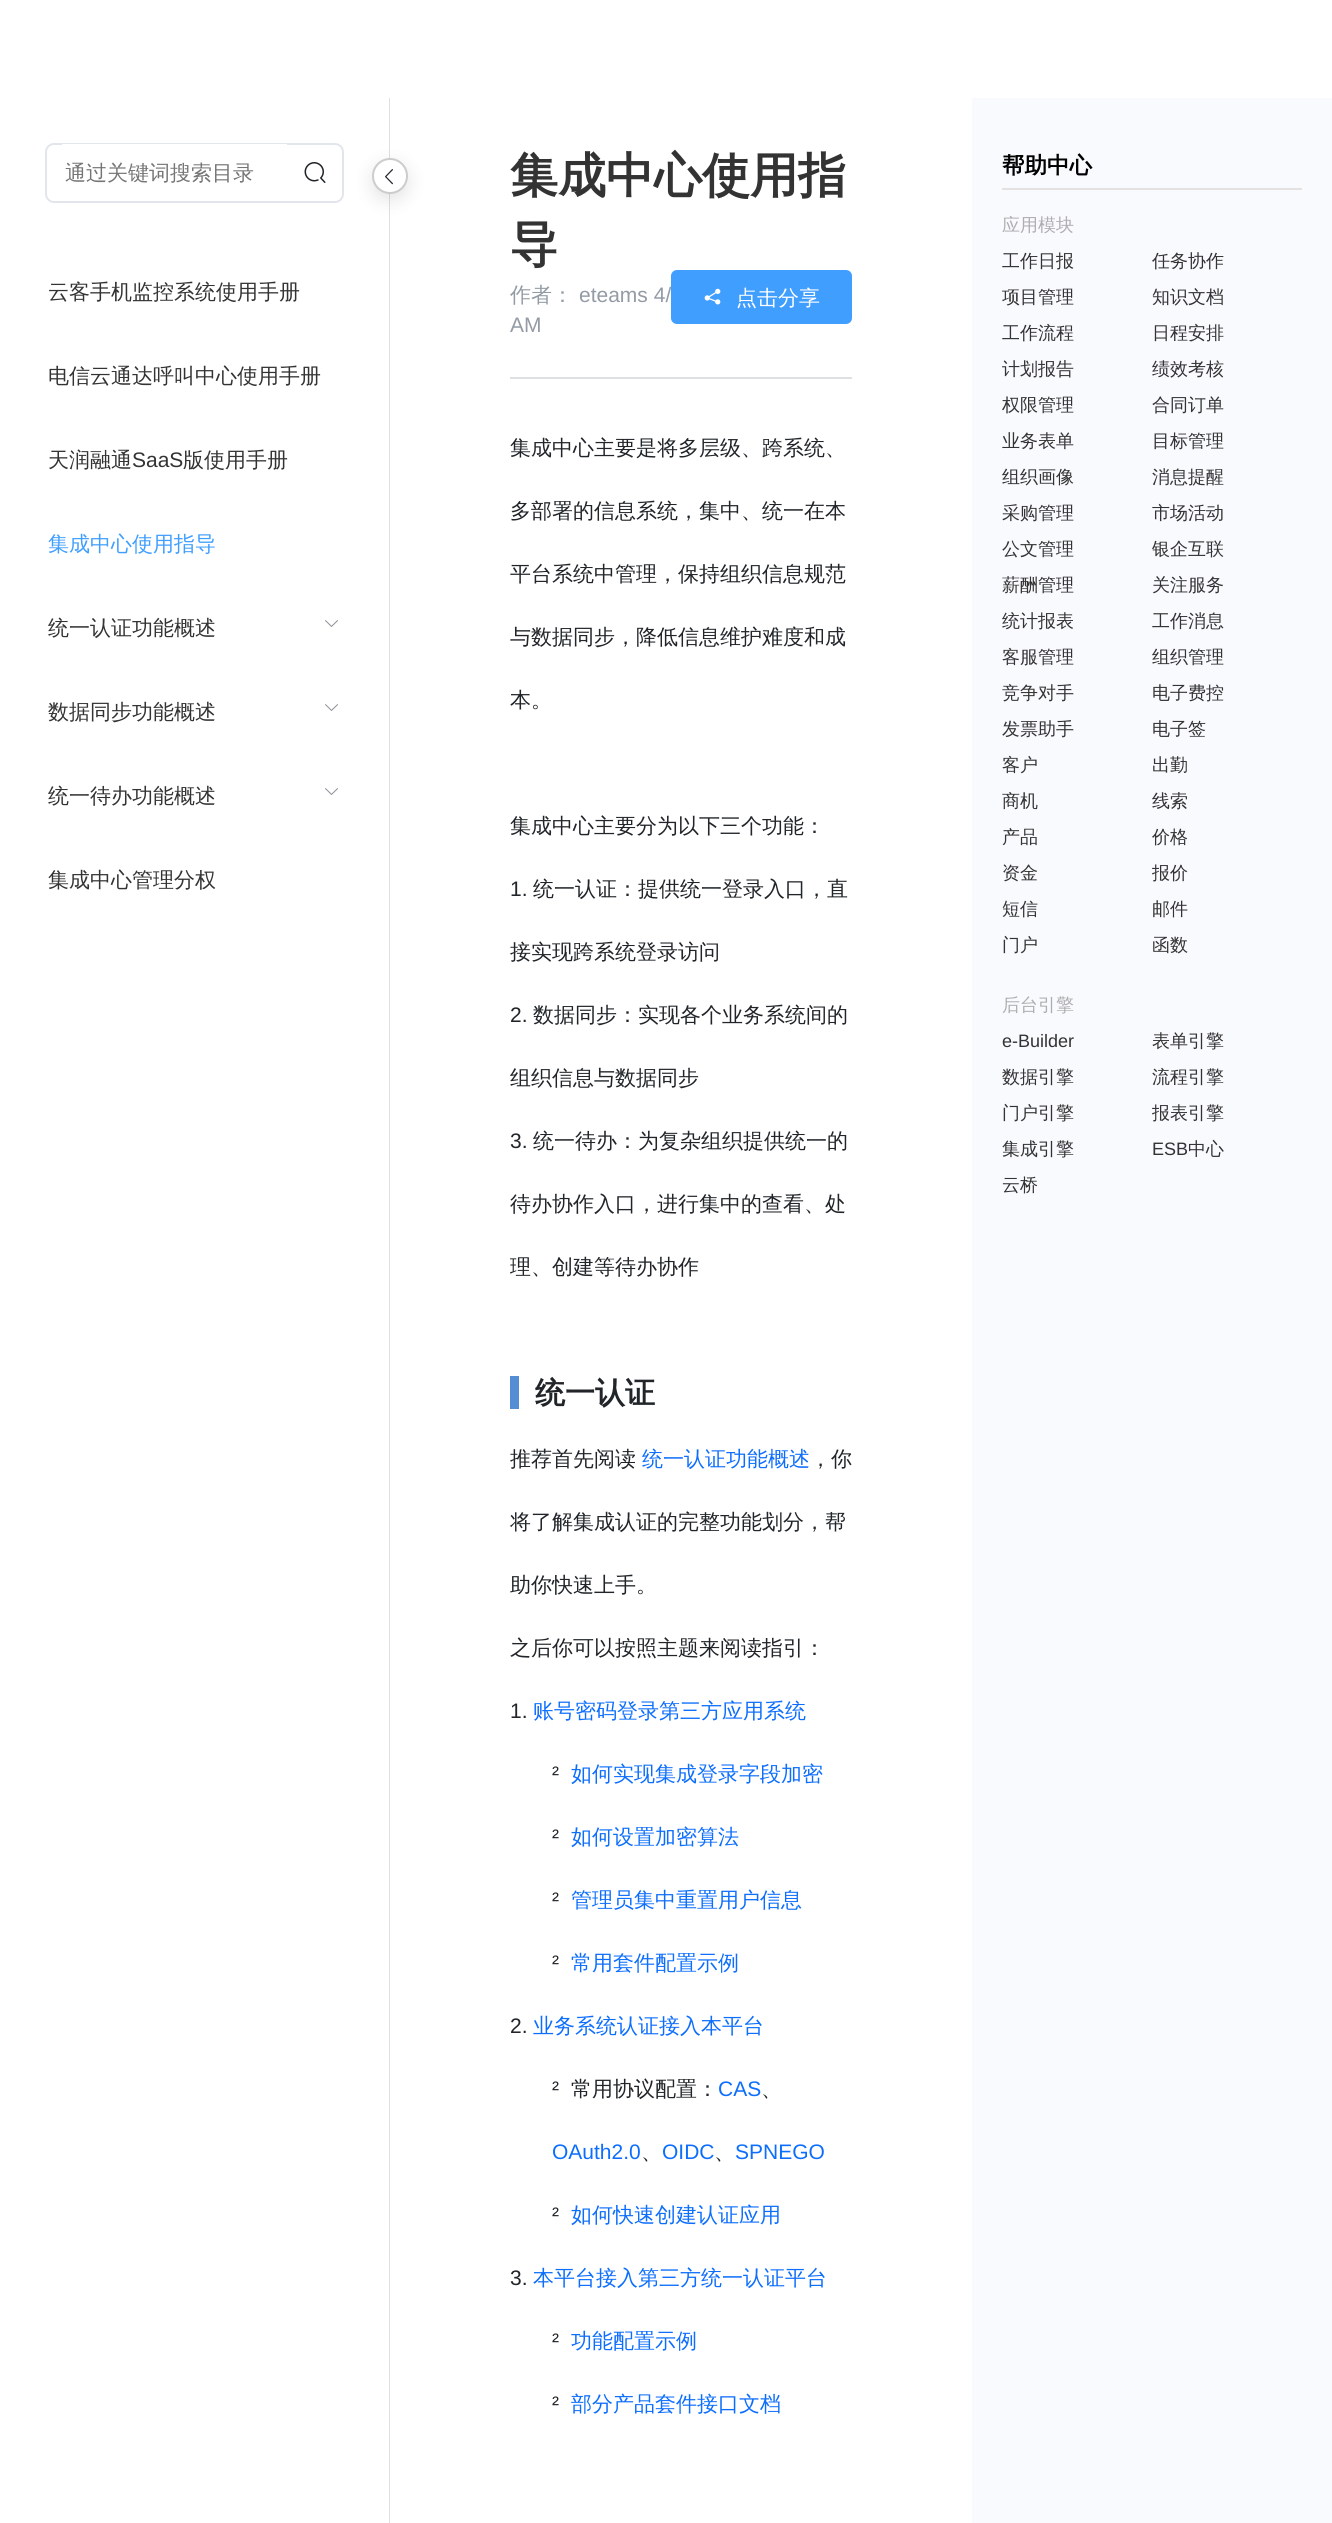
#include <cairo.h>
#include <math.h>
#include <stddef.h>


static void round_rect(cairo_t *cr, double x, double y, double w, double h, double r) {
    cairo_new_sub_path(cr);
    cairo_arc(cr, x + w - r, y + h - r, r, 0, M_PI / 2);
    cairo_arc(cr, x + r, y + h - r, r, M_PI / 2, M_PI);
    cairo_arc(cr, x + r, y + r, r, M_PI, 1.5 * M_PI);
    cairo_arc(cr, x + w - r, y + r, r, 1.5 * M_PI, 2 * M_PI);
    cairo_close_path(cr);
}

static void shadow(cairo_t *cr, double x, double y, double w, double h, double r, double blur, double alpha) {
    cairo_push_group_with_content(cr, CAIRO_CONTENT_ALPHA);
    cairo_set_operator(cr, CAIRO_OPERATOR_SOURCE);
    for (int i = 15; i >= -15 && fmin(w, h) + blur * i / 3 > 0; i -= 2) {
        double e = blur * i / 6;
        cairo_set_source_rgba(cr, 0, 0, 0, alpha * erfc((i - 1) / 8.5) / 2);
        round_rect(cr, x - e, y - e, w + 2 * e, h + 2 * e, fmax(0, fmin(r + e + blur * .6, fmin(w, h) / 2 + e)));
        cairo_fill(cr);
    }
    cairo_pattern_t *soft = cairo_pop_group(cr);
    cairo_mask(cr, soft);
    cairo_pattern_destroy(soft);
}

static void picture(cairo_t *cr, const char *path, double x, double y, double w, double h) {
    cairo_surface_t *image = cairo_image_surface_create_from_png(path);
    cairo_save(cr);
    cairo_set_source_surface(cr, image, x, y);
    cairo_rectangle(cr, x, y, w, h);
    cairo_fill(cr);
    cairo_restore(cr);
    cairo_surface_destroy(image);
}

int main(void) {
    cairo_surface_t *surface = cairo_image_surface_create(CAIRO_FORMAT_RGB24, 1332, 2523);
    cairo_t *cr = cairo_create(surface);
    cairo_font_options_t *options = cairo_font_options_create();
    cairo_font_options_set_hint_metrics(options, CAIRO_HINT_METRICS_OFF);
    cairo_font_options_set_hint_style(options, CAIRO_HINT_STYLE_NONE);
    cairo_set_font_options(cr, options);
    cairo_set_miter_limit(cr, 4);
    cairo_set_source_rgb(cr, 1, 1, 1);
    cairo_paint(cr);
    cairo_set_source_rgb(cr, 0.871, 0.878, 0.89);
    cairo_rectangle(cr, 389, 98, 1, 2425);
    cairo_fill(cr);
    round_rect(cr, 46, 144, 297, 58, 8);
    cairo_set_source_rgb(cr, 0.886, 0.902, 0.925);
    cairo_stroke(cr);
    cairo_set_source_rgb(cr, 1, 1, 1);
    cairo_rectangle(cr, 62, 144, 225, 1);
    cairo_fill(cr);
    cairo_select_font_face(cr, "WenQuanYi Zen Hei Medium", CAIRO_FONT_SLANT_NORMAL, CAIRO_FONT_WEIGHT_NORMAL);
    cairo_set_font_size(cr, 21);
    cairo_set_source_rgb(cr, 0.459, 0.459, 0.459);
    cairo_move_to(cr, 65, 180);
    cairo_show_text(cr, "通过关键词搜索目录");
    picture(cr, "img1.png", 304, 162, 22, 21);
    cairo_set_source_rgb(cr, 0.2, 0.2, 0.2);
    cairo_move_to(cr, 48, 299);
    cairo_show_text(cr, "云客手机监控系统使用手册");
    cairo_move_to(cr, 48, 383);
    cairo_show_text(cr, "电信云通达呼叫中心使用手册");
    cairo_move_to(cr, 48, 467);
    cairo_show_text(cr, "天润融通");
    cairo_select_font_face(cr, "Liberation Sans", CAIRO_FONT_SLANT_NORMAL, CAIRO_FONT_WEIGHT_NORMAL);
    cairo_move_to(cr, 132, 467);
    cairo_show_text(cr, "SaaS");
    cairo_select_font_face(cr, "WenQuanYi Zen Hei Medium", CAIRO_FONT_SLANT_NORMAL, CAIRO_FONT_WEIGHT_NORMAL);
    cairo_move_to(cr, 183, 467);
    cairo_show_text(cr, "版使用手册");
    cairo_set_source_rgb(cr, 0.251, 0.62, 1);
    cairo_move_to(cr, 48, 551);
    cairo_show_text(cr, "集成中心使用指导");
    cairo_set_source_rgb(cr, 0.2, 0.2, 0.2);
    cairo_move_to(cr, 48, 635);
    cairo_show_text(cr, "统一认证功能概述");
    picture(cr, "img2.png", 325, 620, 13, 7);
    cairo_move_to(cr, 48, 719);
    cairo_show_text(cr, "数据同步功能概述");
    picture(cr, "img2.png", 325, 704, 13, 7);
    cairo_move_to(cr, 48, 803);
    cairo_show_text(cr, "统一待办功能概述");
    picture(cr, "img2.png", 325, 788, 13, 7);
    cairo_move_to(cr, 48, 887);
    cairo_show_text(cr, "集成中心管理分权");
    cairo_set_source_rgb(cr, 0, 0, 0);
    shadow(cr, 372, 164, 36, 36, 18, 9, 0.1);
    cairo_set_source_rgb(cr, 1, 1, 1);
    cairo_arc(cr, 390, 176, 17, 0, 2 * M_PI);
    cairo_fill_preserve(cr);
    cairo_set_source_rgb(cr, 0.8, 0.8, 0.8);
    cairo_stroke(cr);
    picture(cr, "img3.png", 385, 169, 8, 16);
    cairo_select_font_face(cr, "WenQuanYi Zen Hei", CAIRO_FONT_SLANT_NORMAL, CAIRO_FONT_WEIGHT_BOLD);
    cairo_set_font_size(cr, 48);
    cairo_set_source_rgb(cr, 0.2, 0.2, 0.2);
    cairo_move_to(cr, 510, 192);
    cairo_show_text(cr, "集成中心使用指");
    cairo_move_to(cr, 510, 261);
    cairo_show_text(cr, "导");
    cairo_select_font_face(cr, "Liberation Sans", CAIRO_FONT_SLANT_NORMAL, CAIRO_FONT_WEIGHT_NORMAL);
    cairo_set_font_size(cr, 21);
    cairo_set_source_rgb(cr, 0.576, 0.608, 0.647);
    cairo_move_to(cr, 579, 302);
    cairo_show_text(cr, "eteams 4/");
    cairo_set_source_rgb(cr, 0.251, 0.62, 1);
    round_rect(cr, 672, 271, 179, 52, 5);
    cairo_fill_preserve(cr);
    cairo_stroke(cr);
    picture(cr, "img4.png", 704, 288, 17, 17);
    cairo_select_font_face(cr, "WenQuanYi Zen Hei Medium", CAIRO_FONT_SLANT_NORMAL, CAIRO_FONT_WEIGHT_NORMAL);
    cairo_set_source_rgb(cr, 1, 1, 1);
    cairo_move_to(cr, 736, 305);
    cairo_show_text(cr, "点击分享");
    cairo_set_source_rgb(cr, 0.576, 0.608, 0.647);
    cairo_move_to(cr, 510, 302);
    cairo_show_text(cr, "作者：");
    cairo_select_font_face(cr, "Liberation Sans", CAIRO_FONT_SLANT_NORMAL, CAIRO_FONT_WEIGHT_NORMAL);
    cairo_move_to(cr, 510, 332);
    cairo_show_text(cr, "AM");
    cairo_set_source_rgb(cr, 0.871, 0.878, 0.89);
    cairo_rectangle(cr, 510, 377, 342, 2);
    cairo_fill(cr);
    cairo_select_font_face(cr, "WenQuanYi Zen Hei Medium", CAIRO_FONT_SLANT_NORMAL, CAIRO_FONT_WEIGHT_NORMAL);
    cairo_set_source_rgb(cr, 0.129, 0.145, 0.161);
    cairo_move_to(cr, 510, 455);
    cairo_show_text(cr, "集成中心主要是将多层级、跨系统、");
    cairo_move_to(cr, 510, 518);
    cairo_show_text(cr, "多部署的信息系统，集中、统一在本");
    cairo_move_to(cr, 510, 581);
    cairo_show_text(cr, "平台系统中管理，保持组织信息规范");
    cairo_move_to(cr, 510, 644);
    cairo_show_text(cr, "与数据同步，降低信息维护难度和成");
    cairo_move_to(cr, 510, 707);
    cairo_show_text(cr, "本。");
    cairo_move_to(cr, 510, 833);
    cairo_show_text(cr, "集成中心主要分为以下三个功能：");
    cairo_select_font_face(cr, "Liberation Sans", CAIRO_FONT_SLANT_NORMAL, CAIRO_FONT_WEIGHT_NORMAL);
    cairo_move_to(cr, 510, 896);
    cairo_show_text(cr, "1.");
    cairo_select_font_face(cr, "WenQuanYi Zen Hei Medium", CAIRO_FONT_SLANT_NORMAL, CAIRO_FONT_WEIGHT_NORMAL);
    cairo_move_to(cr, 533, 896);
    cairo_show_text(cr, "统一认证：提供统一登录入口，直");
    cairo_move_to(cr, 510, 959);
    cairo_show_text(cr, "接实现跨系统登录访问");
    cairo_select_font_face(cr, "Liberation Sans", CAIRO_FONT_SLANT_NORMAL, CAIRO_FONT_WEIGHT_NORMAL);
    cairo_move_to(cr, 510, 1022);
    cairo_show_text(cr, "2.");
    cairo_select_font_face(cr, "WenQuanYi Zen Hei Medium", CAIRO_FONT_SLANT_NORMAL, CAIRO_FONT_WEIGHT_NORMAL);
    cairo_move_to(cr, 533, 1022);
    cairo_show_text(cr, "数据同步：实现各个业务系统间的");
    cairo_move_to(cr, 510, 1085);
    cairo_show_text(cr, "组织信息与数据同步");
    cairo_select_font_face(cr, "Liberation Sans", CAIRO_FONT_SLANT_NORMAL, CAIRO_FONT_WEIGHT_NORMAL);
    cairo_move_to(cr, 510, 1148);
    cairo_show_text(cr, "3.");
    cairo_select_font_face(cr, "WenQuanYi Zen Hei Medium", CAIRO_FONT_SLANT_NORMAL, CAIRO_FONT_WEIGHT_NORMAL);
    cairo_move_to(cr, 533, 1148);
    cairo_show_text(cr, "统一待办：为复杂组织提供统一的");
    cairo_move_to(cr, 510, 1211);
    cairo_show_text(cr, "待办协作入口，进行集中的查看、处");
    cairo_move_to(cr, 510, 1274);
    cairo_show_text(cr, "理、创建等待办协作");
    cairo_select_font_face(cr, "WenQuanYi Zen Hei", CAIRO_FONT_SLANT_NORMAL, CAIRO_FONT_WEIGHT_BOLD);
    cairo_set_font_size(cr, 30);
    cairo_move_to(cr, 535, 1403);
    cairo_show_text(cr, "统一认证");
    cairo_set_source_rgb(cr, 0.329, 0.553, 0.831);
    cairo_rectangle(cr, 510, 1376, 9, 33);
    cairo_fill(cr);
    cairo_select_font_face(cr, "WenQuanYi Zen Hei Medium", CAIRO_FONT_SLANT_NORMAL, CAIRO_FONT_WEIGHT_NORMAL);
    cairo_set_font_size(cr, 21);
    cairo_set_source_rgb(cr, 0.129, 0.145, 0.161);
    cairo_move_to(cr, 510, 1466);
    cairo_show_text(cr, "推荐首先阅读");
    cairo_set_source_rgb(cr, 0.051, 0.431, 0.992);
    cairo_move_to(cr, 642, 1466);
    cairo_show_text(cr, "统一认证功能概述");
    cairo_set_source_rgb(cr, 0.129, 0.145, 0.161);
    cairo_move_to(cr, 810, 1466);
    cairo_show_text(cr, "，你");
    cairo_move_to(cr, 510, 1529);
    cairo_show_text(cr, "将了解集成认证的完整功能划分，帮");
    cairo_move_to(cr, 510, 1592);
    cairo_show_text(cr, "助你快速上手。");
    cairo_move_to(cr, 510, 1655);
    cairo_show_text(cr, "之后你可以按照主题来阅读指引：");
    cairo_select_font_face(cr, "Liberation Sans", CAIRO_FONT_SLANT_NORMAL, CAIRO_FONT_WEIGHT_NORMAL);
    cairo_move_to(cr, 510, 1718);
    cairo_show_text(cr, "1.");
    cairo_select_font_face(cr, "WenQuanYi Zen Hei Medium", CAIRO_FONT_SLANT_NORMAL, CAIRO_FONT_WEIGHT_NORMAL);
    cairo_set_source_rgb(cr, 0.051, 0.431, 0.992);
    cairo_move_to(cr, 533, 1718);
    cairo_show_text(cr, "账号密码登录第三方应用系统");
    cairo_select_font_face(cr, "Liberation Sans", CAIRO_FONT_SLANT_NORMAL, CAIRO_FONT_WEIGHT_NORMAL);
    cairo_set_source_rgb(cr, 0.129, 0.145, 0.161);
    cairo_move_to(cr, 552, 1781);
    cairo_show_text(cr, "²");
    cairo_select_font_face(cr, "WenQuanYi Zen Hei Medium", CAIRO_FONT_SLANT_NORMAL, CAIRO_FONT_WEIGHT_NORMAL);
    cairo_set_source_rgb(cr, 0.051, 0.431, 0.992);
    cairo_move_to(cr, 571, 1781);
    cairo_show_text(cr, "如何实现集成登录字段加密");
    cairo_select_font_face(cr, "Liberation Sans", CAIRO_FONT_SLANT_NORMAL, CAIRO_FONT_WEIGHT_NORMAL);
    cairo_set_source_rgb(cr, 0.129, 0.145, 0.161);
    cairo_move_to(cr, 552, 1844);
    cairo_show_text(cr, "²");
    cairo_select_font_face(cr, "WenQuanYi Zen Hei Medium", CAIRO_FONT_SLANT_NORMAL, CAIRO_FONT_WEIGHT_NORMAL);
    cairo_set_source_rgb(cr, 0.051, 0.431, 0.992);
    cairo_move_to(cr, 571, 1844);
    cairo_show_text(cr, "如何设置加密算法");
    cairo_select_font_face(cr, "Liberation Sans", CAIRO_FONT_SLANT_NORMAL, CAIRO_FONT_WEIGHT_NORMAL);
    cairo_set_source_rgb(cr, 0.129, 0.145, 0.161);
    cairo_move_to(cr, 552, 1907);
    cairo_show_text(cr, "²");
    cairo_select_font_face(cr, "WenQuanYi Zen Hei Medium", CAIRO_FONT_SLANT_NORMAL, CAIRO_FONT_WEIGHT_NORMAL);
    cairo_set_source_rgb(cr, 0.051, 0.431, 0.992);
    cairo_move_to(cr, 571, 1907);
    cairo_show_text(cr, "管理员集中重置用户信息");
    cairo_select_font_face(cr, "Liberation Sans", CAIRO_FONT_SLANT_NORMAL, CAIRO_FONT_WEIGHT_NORMAL);
    cairo_set_source_rgb(cr, 0.129, 0.145, 0.161);
    cairo_move_to(cr, 552, 1970);
    cairo_show_text(cr, "²");
    cairo_select_font_face(cr, "WenQuanYi Zen Hei Medium", CAIRO_FONT_SLANT_NORMAL, CAIRO_FONT_WEIGHT_NORMAL);
    cairo_set_source_rgb(cr, 0.051, 0.431, 0.992);
    cairo_move_to(cr, 571, 1970);
    cairo_show_text(cr, "常用套件配置示例");
    cairo_select_font_face(cr, "Liberation Sans", CAIRO_FONT_SLANT_NORMAL, CAIRO_FONT_WEIGHT_NORMAL);
    cairo_set_source_rgb(cr, 0.129, 0.145, 0.161);
    cairo_move_to(cr, 510, 2033);
    cairo_show_text(cr, "2.");
    cairo_select_font_face(cr, "WenQuanYi Zen Hei Medium", CAIRO_FONT_SLANT_NORMAL, CAIRO_FONT_WEIGHT_NORMAL);
    cairo_set_source_rgb(cr, 0.051, 0.431, 0.992);
    cairo_move_to(cr, 533, 2033);
    cairo_show_text(cr, "业务系统认证接入本平台");
    cairo_select_font_face(cr, "Liberation Sans", CAIRO_FONT_SLANT_NORMAL, CAIRO_FONT_WEIGHT_NORMAL);
    cairo_set_source_rgb(cr, 0.129, 0.145, 0.161);
    cairo_move_to(cr, 552, 2096);
    cairo_show_text(cr, "²");
    cairo_select_font_face(cr, "WenQuanYi Zen Hei Medium", CAIRO_FONT_SLANT_NORMAL, CAIRO_FONT_WEIGHT_NORMAL);
    cairo_move_to(cr, 571, 2096);
    cairo_show_text(cr, "常用协议配置：");
    cairo_select_font_face(cr, "Liberation Sans", CAIRO_FONT_SLANT_NORMAL, CAIRO_FONT_WEIGHT_NORMAL);
    cairo_set_source_rgb(cr, 0.051, 0.431, 0.992);
    cairo_move_to(cr, 718, 2096);
    cairo_show_text(cr, "CAS");
    cairo_select_font_face(cr, "WenQuanYi Zen Hei Medium", CAIRO_FONT_SLANT_NORMAL, CAIRO_FONT_WEIGHT_NORMAL);
    cairo_set_source_rgb(cr, 0.129, 0.145, 0.161);
    cairo_move_to(cr, 761, 2096);
    cairo_show_text(cr, "、");
    cairo_select_font_face(cr, "Liberation Sans", CAIRO_FONT_SLANT_NORMAL, CAIRO_FONT_WEIGHT_NORMAL);
    cairo_set_source_rgb(cr, 0.051, 0.431, 0.992);
    cairo_move_to(cr, 552, 2159);
    cairo_show_text(cr, "OAuth2.0");
    cairo_select_font_face(cr, "WenQuanYi Zen Hei Medium", CAIRO_FONT_SLANT_NORMAL, CAIRO_FONT_WEIGHT_NORMAL);
    cairo_set_source_rgb(cr, 0.129, 0.145, 0.161);
    cairo_move_to(cr, 641, 2159);
    cairo_show_text(cr, "、");
    cairo_select_font_face(cr, "Liberation Sans", CAIRO_FONT_SLANT_NORMAL, CAIRO_FONT_WEIGHT_NORMAL);
    cairo_set_source_rgb(cr, 0.051, 0.431, 0.992);
    cairo_move_to(cr, 662, 2159);
    cairo_show_text(cr, "OIDC");
    cairo_select_font_face(cr, "WenQuanYi Zen Hei Medium", CAIRO_FONT_SLANT_NORMAL, CAIRO_FONT_WEIGHT_NORMAL);
    cairo_set_source_rgb(cr, 0.129, 0.145, 0.161);
    cairo_move_to(cr, 714, 2159);
    cairo_show_text(cr, "、");
    cairo_select_font_face(cr, "Liberation Sans", CAIRO_FONT_SLANT_NORMAL, CAIRO_FONT_WEIGHT_NORMAL);
    cairo_set_source_rgb(cr, 0.051, 0.431, 0.992);
    cairo_move_to(cr, 735, 2159);
    cairo_show_text(cr, "SPNEGO");
    cairo_set_source_rgb(cr, 0.129, 0.145, 0.161);
    cairo_move_to(cr, 552, 2222);
    cairo_show_text(cr, "²");
    cairo_select_font_face(cr, "WenQuanYi Zen Hei Medium", CAIRO_FONT_SLANT_NORMAL, CAIRO_FONT_WEIGHT_NORMAL);
    cairo_set_source_rgb(cr, 0.051, 0.431, 0.992);
    cairo_move_to(cr, 571, 2222);
    cairo_show_text(cr, "如何快速创建认证应用");
    cairo_select_font_face(cr, "Liberation Sans", CAIRO_FONT_SLANT_NORMAL, CAIRO_FONT_WEIGHT_NORMAL);
    cairo_set_source_rgb(cr, 0.129, 0.145, 0.161);
    cairo_move_to(cr, 510, 2285);
    cairo_show_text(cr, "3.");
    cairo_select_font_face(cr, "WenQuanYi Zen Hei Medium", CAIRO_FONT_SLANT_NORMAL, CAIRO_FONT_WEIGHT_NORMAL);
    cairo_set_source_rgb(cr, 0.051, 0.431, 0.992);
    cairo_move_to(cr, 533, 2285);
    cairo_show_text(cr, "本平台接入第三方统一认证平台");
    cairo_select_font_face(cr, "Liberation Sans", CAIRO_FONT_SLANT_NORMAL, CAIRO_FONT_WEIGHT_NORMAL);
    cairo_set_source_rgb(cr, 0.129, 0.145, 0.161);
    cairo_move_to(cr, 552, 2348);
    cairo_show_text(cr, "²");
    cairo_select_font_face(cr, "WenQuanYi Zen Hei Medium", CAIRO_FONT_SLANT_NORMAL, CAIRO_FONT_WEIGHT_NORMAL);
    cairo_set_source_rgb(cr, 0.051, 0.431, 0.992);
    cairo_move_to(cr, 571, 2348);
    cairo_show_text(cr, "功能配置示例");
    cairo_select_font_face(cr, "Liberation Sans", CAIRO_FONT_SLANT_NORMAL, CAIRO_FONT_WEIGHT_NORMAL);
    cairo_set_source_rgb(cr, 0.129, 0.145, 0.161);
    cairo_move_to(cr, 552, 2411);
    cairo_show_text(cr, "²");
    cairo_select_font_face(cr, "WenQuanYi Zen Hei Medium", CAIRO_FONT_SLANT_NORMAL, CAIRO_FONT_WEIGHT_NORMAL);
    cairo_set_source_rgb(cr, 0.051, 0.431, 0.992);
    cairo_move_to(cr, 571, 2411);
    cairo_show_text(cr, "部分产品套件接口文档");
    cairo_set_source_rgb(cr, 0.976, 0.98, 0.996);
    cairo_rectangle(cr, 972, 98, 360, 2425);
    cairo_fill(cr);
    cairo_set_source_rgb(cr, 0.898, 0.882, 0.882);
    cairo_rectangle(cr, 1002, 188, 300, 2);
    cairo_fill(cr);
    cairo_select_font_face(cr, "WenQuanYi Zen Hei", CAIRO_FONT_SLANT_NORMAL, CAIRO_FONT_WEIGHT_BOLD);
    cairo_set_font_size(cr, 22.5);
    cairo_set_source_rgb(cr, 0, 0, 0);
    cairo_move_to(cr, 1002, 173);
    cairo_show_text(cr, "帮助中心");
    cairo_select_font_face(cr, "WenQuanYi Zen Hei Medium", CAIRO_FONT_SLANT_NORMAL, CAIRO_FONT_WEIGHT_NORMAL);
    cairo_set_font_size(cr, 18);
    cairo_set_source_rgb(cr, 0.682, 0.682, 0.682);
    cairo_move_to(cr, 1002, 231);
    cairo_show_text(cr, "应用模块");
    cairo_set_source_rgb(cr, 0.2, 0.2, 0.2);
    cairo_move_to(cr, 1002, 267);
    cairo_show_text(cr, "工作日报");
    cairo_move_to(cr, 1152, 267);
    cairo_show_text(cr, "任务协作");
    cairo_move_to(cr, 1002, 303);
    cairo_show_text(cr, "项目管理");
    cairo_move_to(cr, 1152, 303);
    cairo_show_text(cr, "知识文档");
    cairo_move_to(cr, 1002, 339);
    cairo_show_text(cr, "工作流程");
    cairo_move_to(cr, 1152, 339);
    cairo_show_text(cr, "日程安排");
    cairo_move_to(cr, 1002, 375);
    cairo_show_text(cr, "计划报告");
    cairo_move_to(cr, 1152, 375);
    cairo_show_text(cr, "绩效考核");
    cairo_move_to(cr, 1002, 411);
    cairo_show_text(cr, "权限管理");
    cairo_move_to(cr, 1152, 411);
    cairo_show_text(cr, "合同订单");
    cairo_move_to(cr, 1002, 447);
    cairo_show_text(cr, "业务表单");
    cairo_move_to(cr, 1152, 447);
    cairo_show_text(cr, "目标管理");
    cairo_move_to(cr, 1002, 483);
    cairo_show_text(cr, "组织画像");
    cairo_move_to(cr, 1152, 483);
    cairo_show_text(cr, "消息提醒");
    cairo_move_to(cr, 1002, 519);
    cairo_show_text(cr, "采购管理");
    cairo_move_to(cr, 1152, 519);
    cairo_show_text(cr, "市场活动");
    cairo_move_to(cr, 1002, 555);
    cairo_show_text(cr, "公文管理");
    cairo_move_to(cr, 1152, 555);
    cairo_show_text(cr, "银企互联");
    cairo_move_to(cr, 1002, 591);
    cairo_show_text(cr, "薪酬管理");
    cairo_move_to(cr, 1152, 591);
    cairo_show_text(cr, "关注服务");
    cairo_move_to(cr, 1002, 627);
    cairo_show_text(cr, "统计报表");
    cairo_move_to(cr, 1152, 627);
    cairo_show_text(cr, "工作消息");
    cairo_move_to(cr, 1002, 663);
    cairo_show_text(cr, "客服管理");
    cairo_move_to(cr, 1152, 663);
    cairo_show_text(cr, "组织管理");
    cairo_move_to(cr, 1002, 699);
    cairo_show_text(cr, "竞争对手");
    cairo_move_to(cr, 1152, 699);
    cairo_show_text(cr, "电子费控");
    cairo_move_to(cr, 1002, 735);
    cairo_show_text(cr, "发票助手");
    cairo_move_to(cr, 1152, 735);
    cairo_show_text(cr, "电子签");
    cairo_move_to(cr, 1002, 771);
    cairo_show_text(cr, "客户");
    cairo_move_to(cr, 1152, 771);
    cairo_show_text(cr, "出勤");
    cairo_move_to(cr, 1002, 807);
    cairo_show_text(cr, "商机");
    cairo_move_to(cr, 1152, 807);
    cairo_show_text(cr, "线索");
    cairo_move_to(cr, 1002, 843);
    cairo_show_text(cr, "产品");
    cairo_move_to(cr, 1152, 843);
    cairo_show_text(cr, "价格");
    cairo_move_to(cr, 1002, 879);
    cairo_show_text(cr, "资金");
    cairo_move_to(cr, 1152, 879);
    cairo_show_text(cr, "报价");
    cairo_move_to(cr, 1002, 915);
    cairo_show_text(cr, "短信");
    cairo_move_to(cr, 1152, 915);
    cairo_show_text(cr, "邮件");
    cairo_move_to(cr, 1002, 951);
    cairo_show_text(cr, "门户");
    cairo_move_to(cr, 1152, 951);
    cairo_show_text(cr, "函数");
    cairo_set_source_rgb(cr, 0.682, 0.682, 0.682);
    cairo_move_to(cr, 1002, 1011);
    cairo_show_text(cr, "后台引擎");
    cairo_select_font_face(cr, "Liberation Sans", CAIRO_FONT_SLANT_NORMAL, CAIRO_FONT_WEIGHT_NORMAL);
    cairo_set_source_rgb(cr, 0.2, 0.2, 0.2);
    cairo_move_to(cr, 1002, 1047);
    cairo_show_text(cr, "e-Builder");
    cairo_select_font_face(cr, "WenQuanYi Zen Hei Medium", CAIRO_FONT_SLANT_NORMAL, CAIRO_FONT_WEIGHT_NORMAL);
    cairo_move_to(cr, 1152, 1047);
    cairo_show_text(cr, "表单引擎");
    cairo_move_to(cr, 1002, 1083);
    cairo_show_text(cr, "数据引擎");
    cairo_move_to(cr, 1152, 1083);
    cairo_show_text(cr, "流程引擎");
    cairo_move_to(cr, 1002, 1119);
    cairo_show_text(cr, "门户引擎");
    cairo_move_to(cr, 1152, 1119);
    cairo_show_text(cr, "报表引擎");
    cairo_move_to(cr, 1002, 1155);
    cairo_show_text(cr, "集成引擎");
    cairo_select_font_face(cr, "Liberation Sans", CAIRO_FONT_SLANT_NORMAL, CAIRO_FONT_WEIGHT_NORMAL);
    cairo_move_to(cr, 1152, 1155);
    cairo_show_text(cr, "ESB");
    cairo_select_font_face(cr, "WenQuanYi Zen Hei Medium", CAIRO_FONT_SLANT_NORMAL, CAIRO_FONT_WEIGHT_NORMAL);
    cairo_move_to(cr, 1188, 1155);
    cairo_show_text(cr, "中心");
    cairo_move_to(cr, 1002, 1191);
    cairo_show_text(cr, "云桥");
    cairo_surface_write_to_png(surface, "page.png");
    cairo_font_options_destroy(options);
    cairo_destroy(cr);
    cairo_surface_destroy(surface);
    return 0;
}
